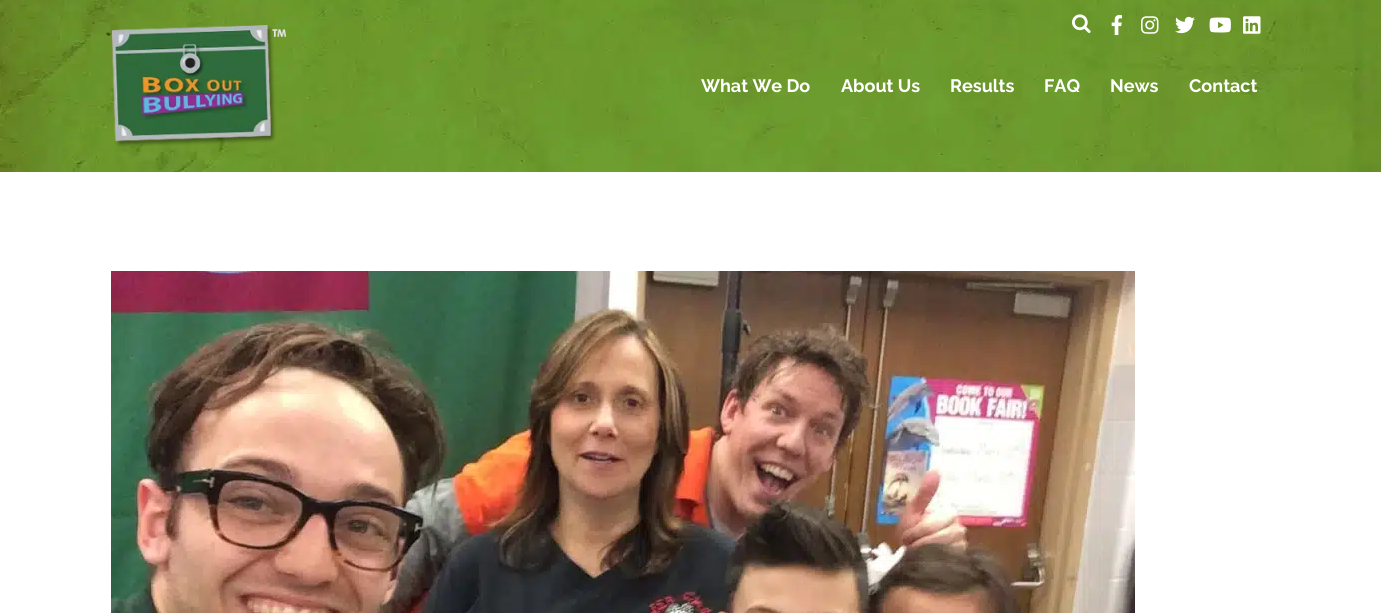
#include <cairo.h>
#include <math.h>
#include <stddef.h>


static void picture(cairo_t *cr, const char *path, double x, double y, double w, double h) {
    cairo_surface_t *image = cairo_image_surface_create_from_png(path);
    cairo_save(cr);
    cairo_set_source_surface(cr, image, x, y);
    cairo_rectangle(cr, x, y, w, h);
    cairo_fill(cr);
    cairo_restore(cr);
    cairo_surface_destroy(image);
}

int main(void) {
    cairo_surface_t *surface = cairo_image_surface_create(CAIRO_FORMAT_RGB24, 1381, 613);
    cairo_t *cr = cairo_create(surface);
    cairo_font_options_t *options = cairo_font_options_create();
    cairo_font_options_set_hint_metrics(options, CAIRO_HINT_METRICS_OFF);
    cairo_font_options_set_hint_style(options, CAIRO_HINT_STYLE_NONE);
    cairo_set_font_options(cr, options);
    cairo_set_miter_limit(cr, 4);
    cairo_set_source_rgb(cr, 1, 1, 1);
    cairo_paint(cr);
    picture(cr, "img1.png", 0, 0, 1381, 172);
    picture(cr, "img2.png", 111, 25, 175, 122);
    picture(cr, "img3.png", 1072, 14, 19, 19);
    picture(cr, "img4.png", 1111, 15, 11, 20);
    picture(cr, "img5.png", 1141, 16, 18, 18);
    picture(cr, "img6.png", 1175, 16, 20, 18);
    picture(cr, "img7.png", 1209, 17, 22, 16);
    picture(cr, "img8.png", 1243, 16, 18, 18);
    cairo_select_font_face(cr, "Raleway", CAIRO_FONT_SLANT_NORMAL, CAIRO_FONT_WEIGHT_BOLD);
    cairo_set_font_size(cr, 18);
    cairo_set_source_rgb(cr, 1, 1, 1);
    cairo_move_to(cr, 701, 92);
    cairo_show_text(cr, "What We Do");
    cairo_move_to(cr, 841, 92);
    cairo_show_text(cr, "About Us");
    cairo_move_to(cr, 950, 92);
    cairo_show_text(cr, "Results");
    cairo_move_to(cr, 1044, 92);
    cairo_show_text(cr, "FAQ");
    cairo_move_to(cr, 1110, 92);
    cairo_show_text(cr, "News");
    cairo_move_to(cr, 1189, 92);
    cairo_show_text(cr, "Contact");
    picture(cr, "img9.png", 111, 271, 1024, 342);
    cairo_surface_write_to_png(surface, "page.png");
    cairo_font_options_destroy(options);
    cairo_destroy(cr);
    cairo_surface_destroy(surface);
    return 0;
}
